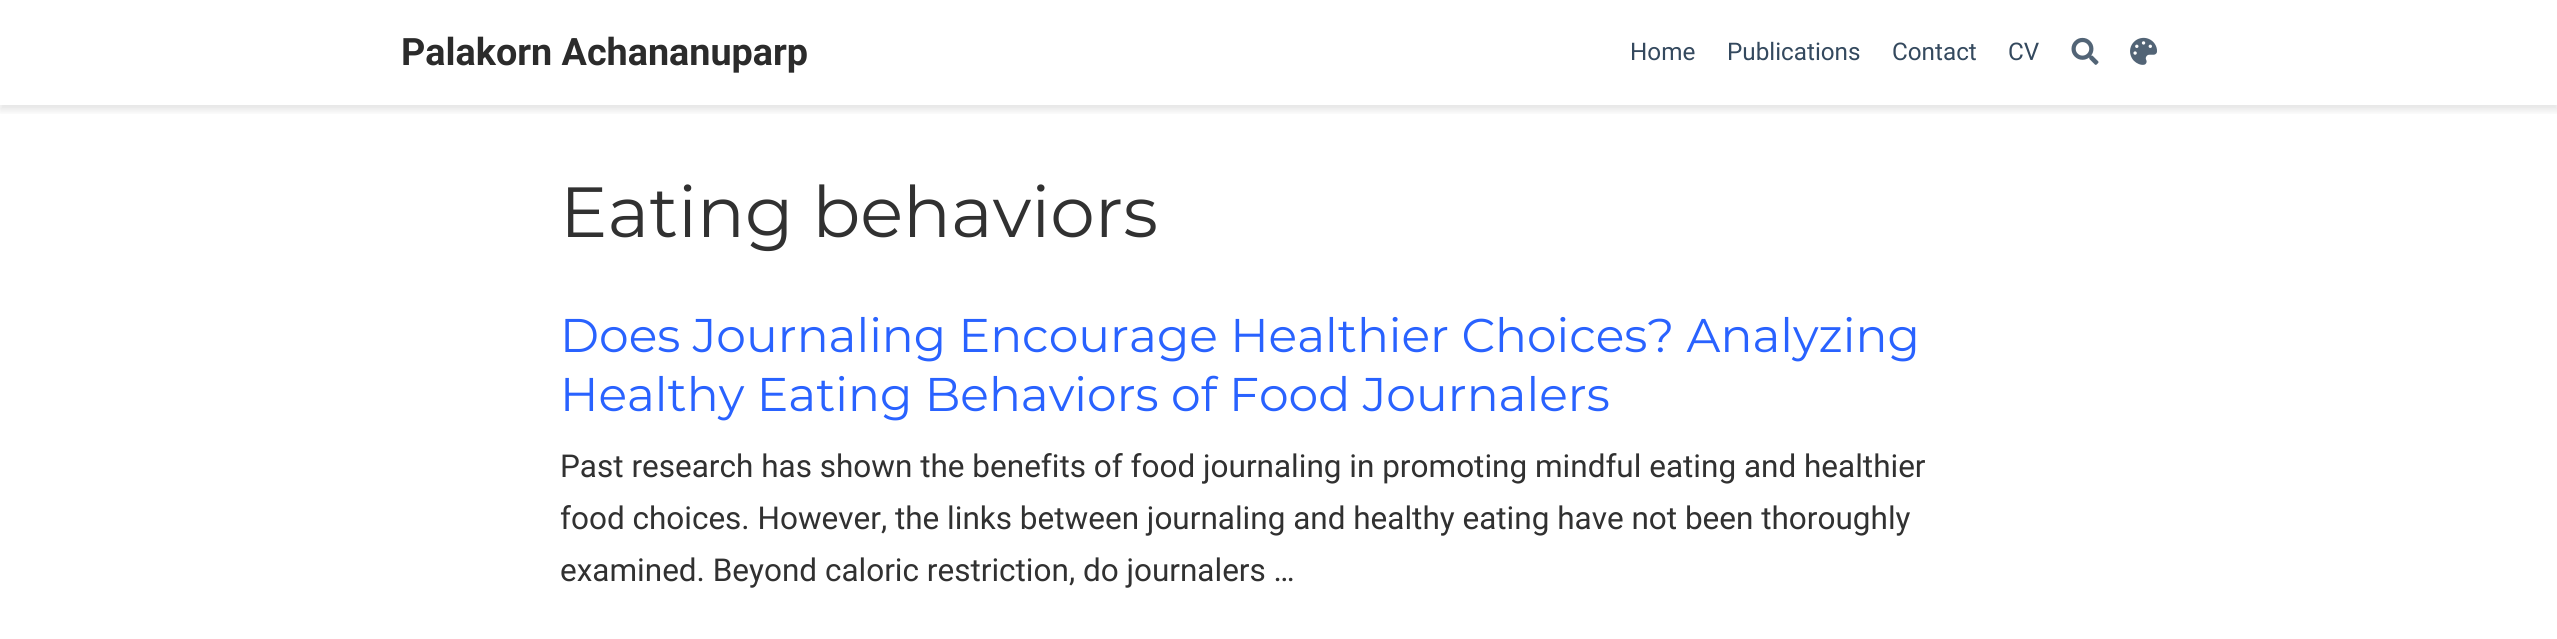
#include <cairo.h>
#include <math.h>
#include <stddef.h>


static void round_rect(cairo_t *cr, double x, double y, double w, double h, double r) {
    cairo_new_sub_path(cr);
    cairo_arc(cr, x + w - r, y + h - r, r, 0, M_PI / 2);
    cairo_arc(cr, x + r, y + h - r, r, M_PI / 2, M_PI);
    cairo_arc(cr, x + r, y + r, r, M_PI, 1.5 * M_PI);
    cairo_arc(cr, x + w - r, y + r, r, 1.5 * M_PI, 2 * M_PI);
    cairo_close_path(cr);
}

static void shadow(cairo_t *cr, double x, double y, double w, double h, double r, double blur, double alpha) {
    cairo_push_group_with_content(cr, CAIRO_CONTENT_ALPHA);
    cairo_set_operator(cr, CAIRO_OPERATOR_SOURCE);
    for (int i = 15; i >= -15 && fmin(w, h) + blur * i / 3 > 0; i -= 2) {
        double e = blur * i / 6;
        cairo_set_source_rgba(cr, 0, 0, 0, alpha * erfc((i - 1) / 8.5) / 2);
        round_rect(cr, x - e, y - e, w + 2 * e, h + 2 * e, fmax(0, fmin(r + e + blur * .6, fmin(w, h) / 2 + e)));
        cairo_fill(cr);
    }
    cairo_pattern_t *soft = cairo_pop_group(cr);
    cairo_mask(cr, soft);
    cairo_pattern_destroy(soft);
}

static void picture(cairo_t *cr, const char *path, double x, double y, double w, double h) {
    cairo_surface_t *image = cairo_image_surface_create_from_png(path);
    cairo_save(cr);
    cairo_set_source_surface(cr, image, x, y);
    cairo_rectangle(cr, x, y, w, h);
    cairo_fill(cr);
    cairo_restore(cr);
    cairo_surface_destroy(image);
}

int main(void) {
    cairo_surface_t *surface = cairo_image_surface_create(CAIRO_FORMAT_RGB24, 2557, 639);
    cairo_t *cr = cairo_create(surface);
    cairo_font_options_t *options = cairo_font_options_create();
    cairo_font_options_set_hint_metrics(options, CAIRO_HINT_METRICS_OFF);
    cairo_font_options_set_hint_style(options, CAIRO_HINT_STYLE_NONE);
    cairo_set_font_options(cr, options);
    cairo_set_miter_limit(cr, 4);
    cairo_set_source_rgb(cr, 1, 1, 1);
    cairo_paint(cr);
    cairo_save(cr);
    cairo_rectangle(cr, 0, 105, 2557, 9);
    cairo_clip(cr);
    cairo_set_source_rgb(cr, 0, 0, 0);
    shadow(cr, 0, 5, 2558, 105, 0, 4, 0.11);
    cairo_restore(cr);
    cairo_select_font_face(cr, "Roboto", CAIRO_FONT_SLANT_NORMAL, CAIRO_FONT_WEIGHT_BOLD);
    cairo_set_font_size(cr, 37.75);
    cairo_set_source_rgb(cr, 0.169, 0.169, 0.169);
    cairo_move_to(cr, 401, 65);
    cairo_show_text(cr, "Palakorn Achananuparp");
    cairo_select_font_face(cr, "Roboto", CAIRO_FONT_SLANT_NORMAL, CAIRO_FONT_WEIGHT_NORMAL);
    cairo_set_font_size(cr, 24.25);
    cairo_set_source_rgb(cr, 0.204, 0.286, 0.369);
    cairo_move_to(cr, 1630, 60);
    cairo_show_text(cr, "Home");
    cairo_move_to(cr, 1727, 60);
    cairo_show_text(cr, "Publications");
    cairo_move_to(cr, 1892, 60);
    cairo_show_text(cr, "Contact");
    cairo_move_to(cr, 2008, 60);
    cairo_show_text(cr, "CV");
    picture(cr, "img1.png", 2071, 37, 28, 28);
    picture(cr, "img2.png", 2130, 37, 27, 28);
    cairo_select_font_face(cr, "Montserrat", CAIRO_FONT_SLANT_NORMAL, CAIRO_FONT_WEIGHT_NORMAL);
    cairo_set_font_size(cr, 70.9);
    cairo_set_source_rgb(cr, 0.192, 0.192, 0.192);
    cairo_move_to(cr, 560, 237);
    cairo_show_text(cr, "Eating behaviors");
    cairo_set_font_size(cr, 47.25);
    cairo_set_source_rgb(cr, 0.161, 0.384, 1);
    cairo_move_to(cr, 560, 352);
    cairo_show_text(cr, "Does Journaling Encourage Healthier Choices? Analyzing");
    cairo_move_to(cr, 560, 411);
    cairo_show_text(cr, "Healthy Eating Behaviors of Food Journalers");
    cairo_select_font_face(cr, "Roboto", CAIRO_FONT_SLANT_NORMAL, CAIRO_FONT_WEIGHT_NORMAL);
    cairo_set_font_size(cr, 31.5);
    cairo_set_source_rgb(cr, 0.192, 0.192, 0.192);
    cairo_move_to(cr, 560, 477);
    cairo_show_text(cr, "Past research has shown the benefits of food journaling in promoting mindful eating and healthier");
    cairo_move_to(cr, 560, 529);
    cairo_show_text(cr, "food choices. However, the links between journaling and healthy eating have not been thoroughly");
    cairo_move_to(cr, 560, 581);
    cairo_show_text(cr, "examined. Beyond caloric restriction, do journalers …");
    cairo_surface_write_to_png(surface, "page.png");
    cairo_font_options_destroy(options);
    cairo_destroy(cr);
    cairo_surface_destroy(surface);
    return 0;
}
